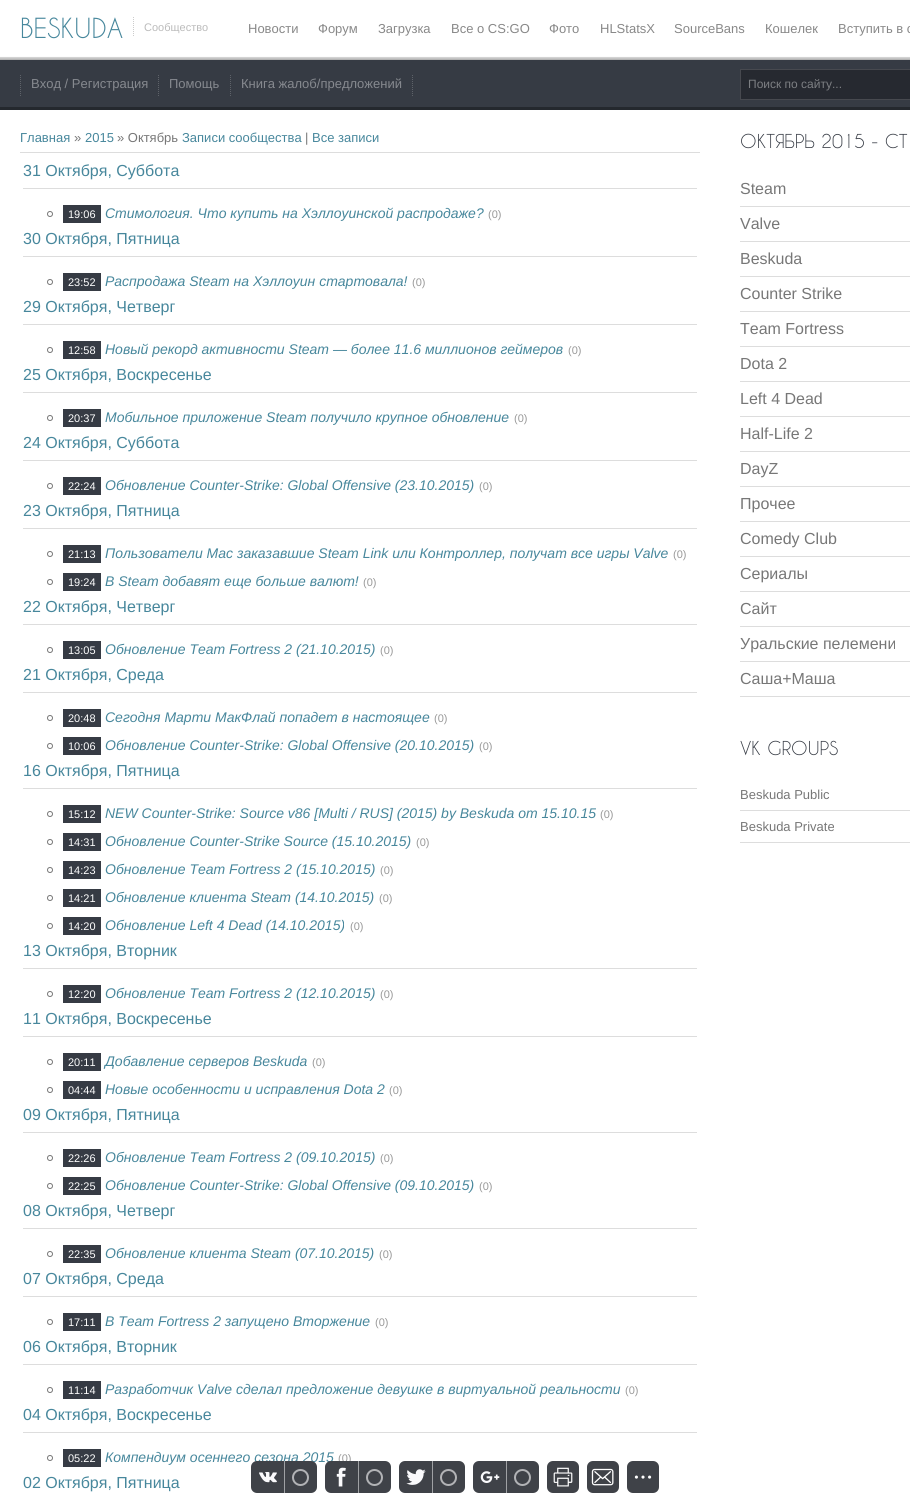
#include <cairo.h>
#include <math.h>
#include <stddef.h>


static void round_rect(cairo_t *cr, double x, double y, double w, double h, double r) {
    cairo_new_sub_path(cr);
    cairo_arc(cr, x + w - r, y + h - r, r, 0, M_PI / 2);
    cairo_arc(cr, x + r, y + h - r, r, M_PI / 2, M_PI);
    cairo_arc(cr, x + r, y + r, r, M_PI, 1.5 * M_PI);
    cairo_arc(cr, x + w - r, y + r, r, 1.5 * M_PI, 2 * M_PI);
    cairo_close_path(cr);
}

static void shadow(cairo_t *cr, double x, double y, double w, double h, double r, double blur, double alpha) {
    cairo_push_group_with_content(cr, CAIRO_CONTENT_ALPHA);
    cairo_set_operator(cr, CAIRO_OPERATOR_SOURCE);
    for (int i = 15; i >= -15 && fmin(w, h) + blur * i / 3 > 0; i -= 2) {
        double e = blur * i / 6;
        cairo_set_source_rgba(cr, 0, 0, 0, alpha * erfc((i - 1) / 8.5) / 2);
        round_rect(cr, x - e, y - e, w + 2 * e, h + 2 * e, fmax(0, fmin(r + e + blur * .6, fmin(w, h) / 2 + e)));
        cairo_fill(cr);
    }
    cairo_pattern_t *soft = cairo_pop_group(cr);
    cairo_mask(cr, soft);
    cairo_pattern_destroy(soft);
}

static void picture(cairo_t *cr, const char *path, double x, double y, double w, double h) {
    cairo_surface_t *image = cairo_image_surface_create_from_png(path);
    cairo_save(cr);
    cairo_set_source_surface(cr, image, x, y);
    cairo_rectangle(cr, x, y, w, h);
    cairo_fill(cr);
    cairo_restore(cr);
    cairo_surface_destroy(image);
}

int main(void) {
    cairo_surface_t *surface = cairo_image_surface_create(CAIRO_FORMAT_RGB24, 910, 1497);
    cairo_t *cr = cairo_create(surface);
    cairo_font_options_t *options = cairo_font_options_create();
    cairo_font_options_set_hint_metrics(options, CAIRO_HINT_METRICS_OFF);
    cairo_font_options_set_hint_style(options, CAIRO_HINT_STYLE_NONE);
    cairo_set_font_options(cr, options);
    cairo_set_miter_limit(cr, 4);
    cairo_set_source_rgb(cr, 0.867, 0.867, 0.867);
    cairo_paint(cr);
    cairo_set_source_rgb(cr, 1, 1, 1);
    cairo_rectangle(cr, 0, 0, 910, 57);
    cairo_fill(cr);
    cairo_select_font_face(cr, "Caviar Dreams", CAIRO_FONT_SLANT_NORMAL, CAIRO_FONT_WEIGHT_NORMAL);
    cairo_set_font_size(cr, 26);
    cairo_set_source_rgb(cr, 0.278, 0.529, 0.612);
    cairo_move_to(cr, 20, 38);
    cairo_show_text(cr, "BESKUDA");
    cairo_new_path(cr);
    cairo_move_to(cr, 133.5, 17);
    cairo_line_to(cr, 133.5, 37);
    cairo_set_source_rgb(cr, 0.8, 0.8, 0.8);
    cairo_set_line_width(cr, 1);
    cairo_set_dash(cr, (double[]){1, 1}, 2, 0);
    cairo_stroke(cr);
    cairo_select_font_face(cr, "Liberation Sans", CAIRO_FONT_SLANT_NORMAL, CAIRO_FONT_WEIGHT_NORMAL);
    cairo_set_font_size(cr, 11);
    cairo_set_source_rgb(cr, 0.733, 0.733, 0.733);
    cairo_move_to(cr, 144, 31);
    cairo_show_text(cr, "Сообщество");
    cairo_set_font_size(cr, 13);
    cairo_set_source_rgb(cr, 0.533, 0.533, 0.533);
    cairo_move_to(cr, 248, 33);
    cairo_show_text(cr, "Новости");
    cairo_move_to(cr, 318, 33);
    cairo_show_text(cr, "Форум");
    cairo_move_to(cr, 378, 33);
    cairo_show_text(cr, "Загрузка");
    cairo_move_to(cr, 451, 33);
    cairo_show_text(cr, "Все о CS:GO");
    cairo_move_to(cr, 549, 33);
    cairo_show_text(cr, "Фото");
    cairo_move_to(cr, 600, 33);
    cairo_show_text(cr, "HLStatsX");
    cairo_move_to(cr, 674, 33);
    cairo_show_text(cr, "SourceBans");
    cairo_move_to(cr, 765, 33);
    cairo_show_text(cr, "Кошелек");
    cairo_move_to(cr, 838, 33);
    cairo_show_text(cr, "Вступить в с");
    cairo_set_source_rgb(cr, 0, 0, 0);
    shadow(cr, -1, 59, 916, 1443, 0, 1.5, 0.3);
    cairo_set_source_rgb(cr, 1, 1, 1);
    cairo_rectangle(cr, 0, 110, 910, 1387);
    cairo_fill(cr);
    cairo_set_source_rgb(cr, 0.212, 0.231, 0.267);
    cairo_rectangle(cr, 0, 60, 910, 47);
    cairo_fill(cr);
    cairo_set_source_rgb(cr, 0.141, 0.157, 0.18);
    cairo_rectangle(cr, 0, 107, 910, 3);
    cairo_fill(cr);
    picture(cr, "img1.png", 20, 75, 1, 21);
    picture(cr, "img1.png", 158, 75, 1, 21);
    cairo_set_source_rgb(cr, 0.525, 0.537, 0.561);
    cairo_move_to(cr, 31, 88);
    cairo_show_text(cr, "Вход / Регистрация");
    picture(cr, "img1.png", 230, 75, 1, 21);
    cairo_move_to(cr, 169, 88);
    cairo_show_text(cr, "Помощь");
    picture(cr, "img1.png", 412, 75, 1, 21);
    cairo_move_to(cr, 241, 88);
    cairo_show_text(cr, "Книга жалоб/предложений");
    cairo_set_source_rgb(cr, 0.149, 0.161, 0.188);
    cairo_rectangle(cr, 740.5, 69.5, 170, 30);
    cairo_fill_preserve(cr);
    cairo_set_source_rgb(cr, 0.278, 0.286, 0.31);
    cairo_set_dash(cr, NULL, 0, 0);
    cairo_stroke(cr);
    cairo_set_font_size(cr, 12);
    cairo_set_source_rgb(cr, 0.49, 0.498, 0.514);
    cairo_move_to(cr, 748, 88);
    cairo_show_text(cr, "Поиск по сайту...");
    cairo_set_font_size(cr, 13);
    cairo_set_source_rgb(cr, 0.278, 0.529, 0.612);
    cairo_move_to(cr, 20, 142);
    cairo_show_text(cr, "Главная");
    cairo_set_source_rgb(cr, 0.467, 0.467, 0.467);
    cairo_move_to(cr, 74, 142);
    cairo_show_text(cr, "»");
    cairo_set_source_rgb(cr, 0.278, 0.529, 0.612);
    cairo_move_to(cr, 85, 142);
    cairo_show_text(cr, "2015");
    cairo_set_source_rgb(cr, 0.467, 0.467, 0.467);
    cairo_move_to(cr, 117, 142);
    cairo_show_text(cr, "» Октябрь");
    cairo_set_source_rgb(cr, 0.278, 0.529, 0.612);
    cairo_move_to(cr, 182, 142);
    cairo_show_text(cr, "Записи сообщества");
    cairo_set_source_rgb(cr, 0.467, 0.467, 0.467);
    cairo_move_to(cr, 305, 142);
    cairo_show_text(cr, "|");
    cairo_set_source_rgb(cr, 0.278, 0.529, 0.612);
    cairo_move_to(cr, 312, 142);
    cairo_show_text(cr, "Все записи");
    cairo_set_source_rgb(cr, 0.867, 0.867, 0.867);
    cairo_rectangle(cr, 20, 152, 680, 1);
    cairo_fill(cr);
    cairo_set_font_size(cr, 16);
    cairo_set_source_rgb(cr, 0.278, 0.529, 0.612);
    cairo_move_to(cr, 23, 176);
    cairo_show_text(cr, "31 Октября, Суббота");
    cairo_set_source_rgb(cr, 0.867, 0.867, 0.867);
    cairo_rectangle(cr, 23, 188, 674, 1);
    cairo_fill(cr);
    cairo_arc(cr, 50, 214, 2.5, 0, 2 * M_PI);
    cairo_set_source_rgb(cr, 0.467, 0.467, 0.467);
    cairo_stroke(cr);
    cairo_set_source_rgb(cr, 0.212, 0.231, 0.267);
    cairo_rectangle(cr, 63, 205, 38, 18);
    cairo_fill(cr);
    cairo_set_font_size(cr, 11);
    cairo_set_source_rgb(cr, 1, 1, 1);
    cairo_move_to(cr, 68, 218);
    cairo_show_text(cr, "19:06");
    cairo_select_font_face(cr, "Liberation Sans", CAIRO_FONT_SLANT_ITALIC, CAIRO_FONT_WEIGHT_NORMAL);
    cairo_set_font_size(cr, 14);
    cairo_set_source_rgb(cr, 0.278, 0.529, 0.612);
    cairo_move_to(cr, 105, 218);
    cairo_show_text(cr, "Стимология. Что купить на Хэллоуинской распродаже?");
    cairo_select_font_face(cr, "Liberation Sans", CAIRO_FONT_SLANT_NORMAL, CAIRO_FONT_WEIGHT_NORMAL);
    cairo_set_font_size(cr, 11);
    cairo_set_source_rgb(cr, 0.6, 0.6, 0.6);
    cairo_move_to(cr, 488, 218);
    cairo_show_text(cr, "(0)");
    cairo_set_font_size(cr, 16);
    cairo_set_source_rgb(cr, 0.278, 0.529, 0.612);
    cairo_move_to(cr, 23, 244);
    cairo_show_text(cr, "30 Октября, Пятница");
    cairo_set_source_rgb(cr, 0.867, 0.867, 0.867);
    cairo_rectangle(cr, 23, 256, 674, 1);
    cairo_fill(cr);
    cairo_arc(cr, 50, 282, 2.5, 0, 2 * M_PI);
    cairo_set_source_rgb(cr, 0.467, 0.467, 0.467);
    cairo_stroke(cr);
    cairo_set_source_rgb(cr, 0.212, 0.231, 0.267);
    cairo_rectangle(cr, 63, 273, 38, 18);
    cairo_fill(cr);
    cairo_set_font_size(cr, 11);
    cairo_set_source_rgb(cr, 1, 1, 1);
    cairo_move_to(cr, 68, 286);
    cairo_show_text(cr, "23:52");
    cairo_select_font_face(cr, "Liberation Sans", CAIRO_FONT_SLANT_ITALIC, CAIRO_FONT_WEIGHT_NORMAL);
    cairo_set_font_size(cr, 14);
    cairo_set_source_rgb(cr, 0.278, 0.529, 0.612);
    cairo_move_to(cr, 105, 286);
    cairo_show_text(cr, "Распродажа Steam на Хэллоуин стартовала!");
    cairo_select_font_face(cr, "Liberation Sans", CAIRO_FONT_SLANT_NORMAL, CAIRO_FONT_WEIGHT_NORMAL);
    cairo_set_font_size(cr, 11);
    cairo_set_source_rgb(cr, 0.6, 0.6, 0.6);
    cairo_move_to(cr, 412, 286);
    cairo_show_text(cr, "(0)");
    cairo_set_font_size(cr, 16);
    cairo_set_source_rgb(cr, 0.278, 0.529, 0.612);
    cairo_move_to(cr, 23, 312);
    cairo_show_text(cr, "29 Октября, Четверг");
    cairo_set_source_rgb(cr, 0.867, 0.867, 0.867);
    cairo_rectangle(cr, 23, 324, 674, 1);
    cairo_fill(cr);
    cairo_arc(cr, 50, 350, 2.5, 0, 2 * M_PI);
    cairo_set_source_rgb(cr, 0.467, 0.467, 0.467);
    cairo_stroke(cr);
    cairo_set_source_rgb(cr, 0.212, 0.231, 0.267);
    cairo_rectangle(cr, 63, 341, 38, 18);
    cairo_fill(cr);
    cairo_set_font_size(cr, 11);
    cairo_set_source_rgb(cr, 1, 1, 1);
    cairo_move_to(cr, 68, 354);
    cairo_show_text(cr, "12:58");
    cairo_select_font_face(cr, "Liberation Sans", CAIRO_FONT_SLANT_ITALIC, CAIRO_FONT_WEIGHT_NORMAL);
    cairo_set_font_size(cr, 14);
    cairo_set_source_rgb(cr, 0.278, 0.529, 0.612);
    cairo_move_to(cr, 105, 354);
    cairo_show_text(cr, "Новый рекорд активности Steam — более 11.6 миллионов геймеров");
    cairo_select_font_face(cr, "Liberation Sans", CAIRO_FONT_SLANT_NORMAL, CAIRO_FONT_WEIGHT_NORMAL);
    cairo_set_font_size(cr, 11);
    cairo_set_source_rgb(cr, 0.6, 0.6, 0.6);
    cairo_move_to(cr, 568, 354);
    cairo_show_text(cr, "(0)");
    cairo_set_font_size(cr, 16);
    cairo_set_source_rgb(cr, 0.278, 0.529, 0.612);
    cairo_move_to(cr, 23, 380);
    cairo_show_text(cr, "25 Октября, Воскресенье");
    cairo_set_source_rgb(cr, 0.867, 0.867, 0.867);
    cairo_rectangle(cr, 23, 392, 674, 1);
    cairo_fill(cr);
    cairo_arc(cr, 50, 418, 2.5, 0, 2 * M_PI);
    cairo_set_source_rgb(cr, 0.467, 0.467, 0.467);
    cairo_stroke(cr);
    cairo_set_source_rgb(cr, 0.212, 0.231, 0.267);
    cairo_rectangle(cr, 63, 409, 38, 18);
    cairo_fill(cr);
    cairo_set_font_size(cr, 11);
    cairo_set_source_rgb(cr, 1, 1, 1);
    cairo_move_to(cr, 68, 422);
    cairo_show_text(cr, "20:37");
    cairo_select_font_face(cr, "Liberation Sans", CAIRO_FONT_SLANT_ITALIC, CAIRO_FONT_WEIGHT_NORMAL);
    cairo_set_font_size(cr, 14);
    cairo_set_source_rgb(cr, 0.278, 0.529, 0.612);
    cairo_move_to(cr, 105, 422);
    cairo_show_text(cr, "Мобильное приложение Steam получило крупное обновление");
    cairo_select_font_face(cr, "Liberation Sans", CAIRO_FONT_SLANT_NORMAL, CAIRO_FONT_WEIGHT_NORMAL);
    cairo_set_font_size(cr, 11);
    cairo_set_source_rgb(cr, 0.6, 0.6, 0.6);
    cairo_move_to(cr, 514, 422);
    cairo_show_text(cr, "(0)");
    cairo_set_font_size(cr, 16);
    cairo_set_source_rgb(cr, 0.278, 0.529, 0.612);
    cairo_move_to(cr, 23, 448);
    cairo_show_text(cr, "24 Октября, Суббота");
    cairo_set_source_rgb(cr, 0.867, 0.867, 0.867);
    cairo_rectangle(cr, 23, 460, 674, 1);
    cairo_fill(cr);
    cairo_arc(cr, 50, 486, 2.5, 0, 2 * M_PI);
    cairo_set_source_rgb(cr, 0.467, 0.467, 0.467);
    cairo_stroke(cr);
    cairo_set_source_rgb(cr, 0.212, 0.231, 0.267);
    cairo_rectangle(cr, 63, 477, 38, 18);
    cairo_fill(cr);
    cairo_set_font_size(cr, 11);
    cairo_set_source_rgb(cr, 1, 1, 1);
    cairo_move_to(cr, 68, 490);
    cairo_show_text(cr, "22:24");
    cairo_select_font_face(cr, "Liberation Sans", CAIRO_FONT_SLANT_ITALIC, CAIRO_FONT_WEIGHT_NORMAL);
    cairo_set_font_size(cr, 14);
    cairo_set_source_rgb(cr, 0.278, 0.529, 0.612);
    cairo_move_to(cr, 105, 490);
    cairo_show_text(cr, "Обновление Counter-Strike: Global Offensive (23.10.2015)");
    cairo_select_font_face(cr, "Liberation Sans", CAIRO_FONT_SLANT_NORMAL, CAIRO_FONT_WEIGHT_NORMAL);
    cairo_set_font_size(cr, 11);
    cairo_set_source_rgb(cr, 0.6, 0.6, 0.6);
    cairo_move_to(cr, 479, 490);
    cairo_show_text(cr, "(0)");
    cairo_set_font_size(cr, 16);
    cairo_set_source_rgb(cr, 0.278, 0.529, 0.612);
    cairo_move_to(cr, 23, 516);
    cairo_show_text(cr, "23 Октября, Пятница");
    cairo_set_source_rgb(cr, 0.867, 0.867, 0.867);
    cairo_rectangle(cr, 23, 528, 674, 1);
    cairo_fill(cr);
    cairo_arc(cr, 50, 554, 2.5, 0, 2 * M_PI);
    cairo_set_source_rgb(cr, 0.467, 0.467, 0.467);
    cairo_stroke(cr);
    cairo_set_source_rgb(cr, 0.212, 0.231, 0.267);
    cairo_rectangle(cr, 63, 545, 38, 18);
    cairo_fill(cr);
    cairo_set_font_size(cr, 11);
    cairo_set_source_rgb(cr, 1, 1, 1);
    cairo_move_to(cr, 68, 558);
    cairo_show_text(cr, "21:13");
    cairo_select_font_face(cr, "Liberation Sans", CAIRO_FONT_SLANT_ITALIC, CAIRO_FONT_WEIGHT_NORMAL);
    cairo_set_font_size(cr, 14);
    cairo_set_source_rgb(cr, 0.278, 0.529, 0.612);
    cairo_move_to(cr, 105, 558);
    cairo_show_text(cr, "Пользователи Mac заказавшие Steam Link или Контроллер, получат все игры Valve");
    cairo_select_font_face(cr, "Liberation Sans", CAIRO_FONT_SLANT_NORMAL, CAIRO_FONT_WEIGHT_NORMAL);
    cairo_set_font_size(cr, 11);
    cairo_set_source_rgb(cr, 0.6, 0.6, 0.6);
    cairo_move_to(cr, 673, 558);
    cairo_show_text(cr, "(0)");
    cairo_new_path(cr);
    cairo_arc(cr, 50, 582, 2.5, 0, 2 * M_PI);
    cairo_set_source_rgb(cr, 0.467, 0.467, 0.467);
    cairo_stroke(cr);
    cairo_set_source_rgb(cr, 0.212, 0.231, 0.267);
    cairo_rectangle(cr, 63, 573, 38, 18);
    cairo_fill(cr);
    cairo_set_source_rgb(cr, 1, 1, 1);
    cairo_move_to(cr, 68, 586);
    cairo_show_text(cr, "19:24");
    cairo_select_font_face(cr, "Liberation Sans", CAIRO_FONT_SLANT_ITALIC, CAIRO_FONT_WEIGHT_NORMAL);
    cairo_set_font_size(cr, 14);
    cairo_set_source_rgb(cr, 0.278, 0.529, 0.612);
    cairo_move_to(cr, 105, 586);
    cairo_show_text(cr, "В Steam добавят еще больше валют!");
    cairo_select_font_face(cr, "Liberation Sans", CAIRO_FONT_SLANT_NORMAL, CAIRO_FONT_WEIGHT_NORMAL);
    cairo_set_font_size(cr, 11);
    cairo_set_source_rgb(cr, 0.6, 0.6, 0.6);
    cairo_move_to(cr, 363, 586);
    cairo_show_text(cr, "(0)");
    cairo_set_font_size(cr, 16);
    cairo_set_source_rgb(cr, 0.278, 0.529, 0.612);
    cairo_move_to(cr, 23, 612);
    cairo_show_text(cr, "22 Октября, Четверг");
    cairo_set_source_rgb(cr, 0.867, 0.867, 0.867);
    cairo_rectangle(cr, 23, 624, 674, 1);
    cairo_fill(cr);
    cairo_arc(cr, 50, 650, 2.5, 0, 2 * M_PI);
    cairo_set_source_rgb(cr, 0.467, 0.467, 0.467);
    cairo_stroke(cr);
    cairo_set_source_rgb(cr, 0.212, 0.231, 0.267);
    cairo_rectangle(cr, 63, 641, 38, 18);
    cairo_fill(cr);
    cairo_set_font_size(cr, 11);
    cairo_set_source_rgb(cr, 1, 1, 1);
    cairo_move_to(cr, 68, 654);
    cairo_show_text(cr, "13:05");
    cairo_select_font_face(cr, "Liberation Sans", CAIRO_FONT_SLANT_ITALIC, CAIRO_FONT_WEIGHT_NORMAL);
    cairo_set_font_size(cr, 14);
    cairo_set_source_rgb(cr, 0.278, 0.529, 0.612);
    cairo_move_to(cr, 105, 654);
    cairo_show_text(cr, "Обновление Team Fortress 2 (21.10.2015)");
    cairo_select_font_face(cr, "Liberation Sans", CAIRO_FONT_SLANT_NORMAL, CAIRO_FONT_WEIGHT_NORMAL);
    cairo_set_font_size(cr, 11);
    cairo_set_source_rgb(cr, 0.6, 0.6, 0.6);
    cairo_move_to(cr, 380, 654);
    cairo_show_text(cr, "(0)");
    cairo_set_font_size(cr, 16);
    cairo_set_source_rgb(cr, 0.278, 0.529, 0.612);
    cairo_move_to(cr, 23, 680);
    cairo_show_text(cr, "21 Октября, Среда");
    cairo_set_source_rgb(cr, 0.867, 0.867, 0.867);
    cairo_rectangle(cr, 23, 692, 674, 1);
    cairo_fill(cr);
    cairo_arc(cr, 50, 718, 2.5, 0, 2 * M_PI);
    cairo_set_source_rgb(cr, 0.467, 0.467, 0.467);
    cairo_stroke(cr);
    cairo_set_source_rgb(cr, 0.212, 0.231, 0.267);
    cairo_rectangle(cr, 63, 709, 38, 18);
    cairo_fill(cr);
    cairo_set_font_size(cr, 11);
    cairo_set_source_rgb(cr, 1, 1, 1);
    cairo_move_to(cr, 68, 722);
    cairo_show_text(cr, "20:48");
    cairo_select_font_face(cr, "Liberation Sans", CAIRO_FONT_SLANT_ITALIC, CAIRO_FONT_WEIGHT_NORMAL);
    cairo_set_font_size(cr, 14);
    cairo_set_source_rgb(cr, 0.278, 0.529, 0.612);
    cairo_move_to(cr, 105, 722);
    cairo_show_text(cr, "Сегодня Марти МакФлай попадет в настоящее");
    cairo_select_font_face(cr, "Liberation Sans", CAIRO_FONT_SLANT_NORMAL, CAIRO_FONT_WEIGHT_NORMAL);
    cairo_set_font_size(cr, 11);
    cairo_set_source_rgb(cr, 0.6, 0.6, 0.6);
    cairo_move_to(cr, 434, 722);
    cairo_show_text(cr, "(0)");
    cairo_new_path(cr);
    cairo_arc(cr, 50, 746, 2.5, 0, 2 * M_PI);
    cairo_set_source_rgb(cr, 0.467, 0.467, 0.467);
    cairo_stroke(cr);
    cairo_set_source_rgb(cr, 0.212, 0.231, 0.267);
    cairo_rectangle(cr, 63, 737, 38, 18);
    cairo_fill(cr);
    cairo_set_source_rgb(cr, 1, 1, 1);
    cairo_move_to(cr, 68, 750);
    cairo_show_text(cr, "10:06");
    cairo_select_font_face(cr, "Liberation Sans", CAIRO_FONT_SLANT_ITALIC, CAIRO_FONT_WEIGHT_NORMAL);
    cairo_set_font_size(cr, 14);
    cairo_set_source_rgb(cr, 0.278, 0.529, 0.612);
    cairo_move_to(cr, 105, 750);
    cairo_show_text(cr, "Обновление Counter-Strike: Global Offensive (20.10.2015)");
    cairo_select_font_face(cr, "Liberation Sans", CAIRO_FONT_SLANT_NORMAL, CAIRO_FONT_WEIGHT_NORMAL);
    cairo_set_font_size(cr, 11);
    cairo_set_source_rgb(cr, 0.6, 0.6, 0.6);
    cairo_move_to(cr, 479, 750);
    cairo_show_text(cr, "(0)");
    cairo_set_font_size(cr, 16);
    cairo_set_source_rgb(cr, 0.278, 0.529, 0.612);
    cairo_move_to(cr, 23, 776);
    cairo_show_text(cr, "16 Октября, Пятница");
    cairo_set_source_rgb(cr, 0.867, 0.867, 0.867);
    cairo_rectangle(cr, 23, 788, 674, 1);
    cairo_fill(cr);
    cairo_arc(cr, 50, 814, 2.5, 0, 2 * M_PI);
    cairo_set_source_rgb(cr, 0.467, 0.467, 0.467);
    cairo_stroke(cr);
    cairo_set_source_rgb(cr, 0.212, 0.231, 0.267);
    cairo_rectangle(cr, 63, 805, 38, 18);
    cairo_fill(cr);
    cairo_set_font_size(cr, 11);
    cairo_set_source_rgb(cr, 1, 1, 1);
    cairo_move_to(cr, 68, 818);
    cairo_show_text(cr, "15:12");
    cairo_select_font_face(cr, "Liberation Sans", CAIRO_FONT_SLANT_ITALIC, CAIRO_FONT_WEIGHT_NORMAL);
    cairo_set_font_size(cr, 14);
    cairo_set_source_rgb(cr, 0.278, 0.529, 0.612);
    cairo_move_to(cr, 105, 818);
    cairo_show_text(cr, "NEW Counter-Strike: Source v86 [Multi / RUS] (2015) by Beskuda от 15.10.15");
    cairo_select_font_face(cr, "Liberation Sans", CAIRO_FONT_SLANT_NORMAL, CAIRO_FONT_WEIGHT_NORMAL);
    cairo_set_font_size(cr, 11);
    cairo_set_source_rgb(cr, 0.6, 0.6, 0.6);
    cairo_move_to(cr, 600, 818);
    cairo_show_text(cr, "(0)");
    cairo_new_path(cr);
    cairo_arc(cr, 50, 842, 2.5, 0, 2 * M_PI);
    cairo_set_source_rgb(cr, 0.467, 0.467, 0.467);
    cairo_stroke(cr);
    cairo_set_source_rgb(cr, 0.212, 0.231, 0.267);
    cairo_rectangle(cr, 63, 833, 38, 18);
    cairo_fill(cr);
    cairo_set_source_rgb(cr, 1, 1, 1);
    cairo_move_to(cr, 68, 846);
    cairo_show_text(cr, "14:31");
    cairo_select_font_face(cr, "Liberation Sans", CAIRO_FONT_SLANT_ITALIC, CAIRO_FONT_WEIGHT_NORMAL);
    cairo_set_font_size(cr, 14);
    cairo_set_source_rgb(cr, 0.278, 0.529, 0.612);
    cairo_move_to(cr, 105, 846);
    cairo_show_text(cr, "Обновление Counter-Strike Source (15.10.2015)");
    cairo_select_font_face(cr, "Liberation Sans", CAIRO_FONT_SLANT_NORMAL, CAIRO_FONT_WEIGHT_NORMAL);
    cairo_set_font_size(cr, 11);
    cairo_set_source_rgb(cr, 0.6, 0.6, 0.6);
    cairo_move_to(cr, 416, 846);
    cairo_show_text(cr, "(0)");
    cairo_new_path(cr);
    cairo_arc(cr, 50, 870, 2.5, 0, 2 * M_PI);
    cairo_set_source_rgb(cr, 0.467, 0.467, 0.467);
    cairo_stroke(cr);
    cairo_set_source_rgb(cr, 0.212, 0.231, 0.267);
    cairo_rectangle(cr, 63, 861, 38, 18);
    cairo_fill(cr);
    cairo_set_source_rgb(cr, 1, 1, 1);
    cairo_move_to(cr, 68, 874);
    cairo_show_text(cr, "14:23");
    cairo_select_font_face(cr, "Liberation Sans", CAIRO_FONT_SLANT_ITALIC, CAIRO_FONT_WEIGHT_NORMAL);
    cairo_set_font_size(cr, 14);
    cairo_set_source_rgb(cr, 0.278, 0.529, 0.612);
    cairo_move_to(cr, 105, 874);
    cairo_show_text(cr, "Обновление Team Fortress 2 (15.10.2015)");
    cairo_select_font_face(cr, "Liberation Sans", CAIRO_FONT_SLANT_NORMAL, CAIRO_FONT_WEIGHT_NORMAL);
    cairo_set_font_size(cr, 11);
    cairo_set_source_rgb(cr, 0.6, 0.6, 0.6);
    cairo_move_to(cr, 380, 874);
    cairo_show_text(cr, "(0)");
    cairo_new_path(cr);
    cairo_arc(cr, 50, 898, 2.5, 0, 2 * M_PI);
    cairo_set_source_rgb(cr, 0.467, 0.467, 0.467);
    cairo_stroke(cr);
    cairo_set_source_rgb(cr, 0.212, 0.231, 0.267);
    cairo_rectangle(cr, 63, 889, 38, 18);
    cairo_fill(cr);
    cairo_set_source_rgb(cr, 1, 1, 1);
    cairo_move_to(cr, 68, 902);
    cairo_show_text(cr, "14:21");
    cairo_select_font_face(cr, "Liberation Sans", CAIRO_FONT_SLANT_ITALIC, CAIRO_FONT_WEIGHT_NORMAL);
    cairo_set_font_size(cr, 14);
    cairo_set_source_rgb(cr, 0.278, 0.529, 0.612);
    cairo_move_to(cr, 105, 902);
    cairo_show_text(cr, "Обновление клиента Steam (14.10.2015)");
    cairo_select_font_face(cr, "Liberation Sans", CAIRO_FONT_SLANT_NORMAL, CAIRO_FONT_WEIGHT_NORMAL);
    cairo_set_font_size(cr, 11);
    cairo_set_source_rgb(cr, 0.6, 0.6, 0.6);
    cairo_move_to(cr, 379, 902);
    cairo_show_text(cr, "(0)");
    cairo_new_path(cr);
    cairo_arc(cr, 50, 926, 2.5, 0, 2 * M_PI);
    cairo_set_source_rgb(cr, 0.467, 0.467, 0.467);
    cairo_stroke(cr);
    cairo_set_source_rgb(cr, 0.212, 0.231, 0.267);
    cairo_rectangle(cr, 63, 917, 38, 18);
    cairo_fill(cr);
    cairo_set_source_rgb(cr, 1, 1, 1);
    cairo_move_to(cr, 68, 930);
    cairo_show_text(cr, "14:20");
    cairo_select_font_face(cr, "Liberation Sans", CAIRO_FONT_SLANT_ITALIC, CAIRO_FONT_WEIGHT_NORMAL);
    cairo_set_font_size(cr, 14);
    cairo_set_source_rgb(cr, 0.278, 0.529, 0.612);
    cairo_move_to(cr, 105, 930);
    cairo_show_text(cr, "Обновление Left 4 Dead (14.10.2015)");
    cairo_select_font_face(cr, "Liberation Sans", CAIRO_FONT_SLANT_NORMAL, CAIRO_FONT_WEIGHT_NORMAL);
    cairo_set_font_size(cr, 11);
    cairo_set_source_rgb(cr, 0.6, 0.6, 0.6);
    cairo_move_to(cr, 350, 930);
    cairo_show_text(cr, "(0)");
    cairo_set_font_size(cr, 16);
    cairo_set_source_rgb(cr, 0.278, 0.529, 0.612);
    cairo_move_to(cr, 23, 956);
    cairo_show_text(cr, "13 Октября, Вторник");
    cairo_set_source_rgb(cr, 0.867, 0.867, 0.867);
    cairo_rectangle(cr, 23, 968, 674, 1);
    cairo_fill(cr);
    cairo_arc(cr, 50, 994, 2.5, 0, 2 * M_PI);
    cairo_set_source_rgb(cr, 0.467, 0.467, 0.467);
    cairo_stroke(cr);
    cairo_set_source_rgb(cr, 0.212, 0.231, 0.267);
    cairo_rectangle(cr, 63, 985, 38, 18);
    cairo_fill(cr);
    cairo_set_font_size(cr, 11);
    cairo_set_source_rgb(cr, 1, 1, 1);
    cairo_move_to(cr, 68, 998);
    cairo_show_text(cr, "12:20");
    cairo_select_font_face(cr, "Liberation Sans", CAIRO_FONT_SLANT_ITALIC, CAIRO_FONT_WEIGHT_NORMAL);
    cairo_set_font_size(cr, 14);
    cairo_set_source_rgb(cr, 0.278, 0.529, 0.612);
    cairo_move_to(cr, 105, 998);
    cairo_show_text(cr, "Обновление Team Fortress 2 (12.10.2015)");
    cairo_select_font_face(cr, "Liberation Sans", CAIRO_FONT_SLANT_NORMAL, CAIRO_FONT_WEIGHT_NORMAL);
    cairo_set_font_size(cr, 11);
    cairo_set_source_rgb(cr, 0.6, 0.6, 0.6);
    cairo_move_to(cr, 380, 998);
    cairo_show_text(cr, "(0)");
    cairo_set_font_size(cr, 16);
    cairo_set_source_rgb(cr, 0.278, 0.529, 0.612);
    cairo_move_to(cr, 23, 1024);
    cairo_show_text(cr, "11 Октября, Воскресенье");
    cairo_set_source_rgb(cr, 0.867, 0.867, 0.867);
    cairo_rectangle(cr, 23, 1036, 674, 1);
    cairo_fill(cr);
    cairo_arc(cr, 50, 1062, 2.5, 0, 2 * M_PI);
    cairo_set_source_rgb(cr, 0.467, 0.467, 0.467);
    cairo_stroke(cr);
    cairo_set_source_rgb(cr, 0.212, 0.231, 0.267);
    cairo_rectangle(cr, 63, 1053, 38, 18);
    cairo_fill(cr);
    cairo_set_font_size(cr, 11);
    cairo_set_source_rgb(cr, 1, 1, 1);
    cairo_move_to(cr, 68, 1066);
    cairo_show_text(cr, "20:11");
    cairo_select_font_face(cr, "Liberation Sans", CAIRO_FONT_SLANT_ITALIC, CAIRO_FONT_WEIGHT_NORMAL);
    cairo_set_font_size(cr, 14);
    cairo_set_source_rgb(cr, 0.278, 0.529, 0.612);
    cairo_move_to(cr, 105, 1066);
    cairo_show_text(cr, "Добавление серверов Beskuda");
    cairo_select_font_face(cr, "Liberation Sans", CAIRO_FONT_SLANT_NORMAL, CAIRO_FONT_WEIGHT_NORMAL);
    cairo_set_font_size(cr, 11);
    cairo_set_source_rgb(cr, 0.6, 0.6, 0.6);
    cairo_move_to(cr, 312, 1066);
    cairo_show_text(cr, "(0)");
    cairo_new_path(cr);
    cairo_arc(cr, 50, 1090, 2.5, 0, 2 * M_PI);
    cairo_set_source_rgb(cr, 0.467, 0.467, 0.467);
    cairo_stroke(cr);
    cairo_set_source_rgb(cr, 0.212, 0.231, 0.267);
    cairo_rectangle(cr, 63, 1081, 38, 18);
    cairo_fill(cr);
    cairo_set_source_rgb(cr, 1, 1, 1);
    cairo_move_to(cr, 68, 1094);
    cairo_show_text(cr, "04:44");
    cairo_select_font_face(cr, "Liberation Sans", CAIRO_FONT_SLANT_ITALIC, CAIRO_FONT_WEIGHT_NORMAL);
    cairo_set_font_size(cr, 14);
    cairo_set_source_rgb(cr, 0.278, 0.529, 0.612);
    cairo_move_to(cr, 105, 1094);
    cairo_show_text(cr, "Новые особенности и исправления Dota 2");
    cairo_select_font_face(cr, "Liberation Sans", CAIRO_FONT_SLANT_NORMAL, CAIRO_FONT_WEIGHT_NORMAL);
    cairo_set_font_size(cr, 11);
    cairo_set_source_rgb(cr, 0.6, 0.6, 0.6);
    cairo_move_to(cr, 389, 1094);
    cairo_show_text(cr, "(0)");
    cairo_set_font_size(cr, 16);
    cairo_set_source_rgb(cr, 0.278, 0.529, 0.612);
    cairo_move_to(cr, 23, 1120);
    cairo_show_text(cr, "09 Октября, Пятница");
    cairo_set_source_rgb(cr, 0.867, 0.867, 0.867);
    cairo_rectangle(cr, 23, 1132, 674, 1);
    cairo_fill(cr);
    cairo_arc(cr, 50, 1158, 2.5, 0, 2 * M_PI);
    cairo_set_source_rgb(cr, 0.467, 0.467, 0.467);
    cairo_stroke(cr);
    cairo_set_source_rgb(cr, 0.212, 0.231, 0.267);
    cairo_rectangle(cr, 63, 1149, 38, 18);
    cairo_fill(cr);
    cairo_set_font_size(cr, 11);
    cairo_set_source_rgb(cr, 1, 1, 1);
    cairo_move_to(cr, 68, 1162);
    cairo_show_text(cr, "22:26");
    cairo_select_font_face(cr, "Liberation Sans", CAIRO_FONT_SLANT_ITALIC, CAIRO_FONT_WEIGHT_NORMAL);
    cairo_set_font_size(cr, 14);
    cairo_set_source_rgb(cr, 0.278, 0.529, 0.612);
    cairo_move_to(cr, 105, 1162);
    cairo_show_text(cr, "Обновление Team Fortress 2 (09.10.2015)");
    cairo_select_font_face(cr, "Liberation Sans", CAIRO_FONT_SLANT_NORMAL, CAIRO_FONT_WEIGHT_NORMAL);
    cairo_set_font_size(cr, 11);
    cairo_set_source_rgb(cr, 0.6, 0.6, 0.6);
    cairo_move_to(cr, 380, 1162);
    cairo_show_text(cr, "(0)");
    cairo_new_path(cr);
    cairo_arc(cr, 50, 1186, 2.5, 0, 2 * M_PI);
    cairo_set_source_rgb(cr, 0.467, 0.467, 0.467);
    cairo_stroke(cr);
    cairo_set_source_rgb(cr, 0.212, 0.231, 0.267);
    cairo_rectangle(cr, 63, 1177, 38, 18);
    cairo_fill(cr);
    cairo_set_source_rgb(cr, 1, 1, 1);
    cairo_move_to(cr, 68, 1190);
    cairo_show_text(cr, "22:25");
    cairo_select_font_face(cr, "Liberation Sans", CAIRO_FONT_SLANT_ITALIC, CAIRO_FONT_WEIGHT_NORMAL);
    cairo_set_font_size(cr, 14);
    cairo_set_source_rgb(cr, 0.278, 0.529, 0.612);
    cairo_move_to(cr, 105, 1190);
    cairo_show_text(cr, "Обновление Counter-Strike: Global Offensive (09.10.2015)");
    cairo_select_font_face(cr, "Liberation Sans", CAIRO_FONT_SLANT_NORMAL, CAIRO_FONT_WEIGHT_NORMAL);
    cairo_set_font_size(cr, 11);
    cairo_set_source_rgb(cr, 0.6, 0.6, 0.6);
    cairo_move_to(cr, 479, 1190);
    cairo_show_text(cr, "(0)");
    cairo_set_font_size(cr, 16);
    cairo_set_source_rgb(cr, 0.278, 0.529, 0.612);
    cairo_move_to(cr, 23, 1216);
    cairo_show_text(cr, "08 Октября, Четверг");
    cairo_set_source_rgb(cr, 0.867, 0.867, 0.867);
    cairo_rectangle(cr, 23, 1228, 674, 1);
    cairo_fill(cr);
    cairo_arc(cr, 50, 1254, 2.5, 0, 2 * M_PI);
    cairo_set_source_rgb(cr, 0.467, 0.467, 0.467);
    cairo_stroke(cr);
    cairo_set_source_rgb(cr, 0.212, 0.231, 0.267);
    cairo_rectangle(cr, 63, 1245, 38, 18);
    cairo_fill(cr);
    cairo_set_font_size(cr, 11);
    cairo_set_source_rgb(cr, 1, 1, 1);
    cairo_move_to(cr, 68, 1258);
    cairo_show_text(cr, "22:35");
    cairo_select_font_face(cr, "Liberation Sans", CAIRO_FONT_SLANT_ITALIC, CAIRO_FONT_WEIGHT_NORMAL);
    cairo_set_font_size(cr, 14);
    cairo_set_source_rgb(cr, 0.278, 0.529, 0.612);
    cairo_move_to(cr, 105, 1258);
    cairo_show_text(cr, "Обновление клиента Steam (07.10.2015)");
    cairo_select_font_face(cr, "Liberation Sans", CAIRO_FONT_SLANT_NORMAL, CAIRO_FONT_WEIGHT_NORMAL);
    cairo_set_font_size(cr, 11);
    cairo_set_source_rgb(cr, 0.6, 0.6, 0.6);
    cairo_move_to(cr, 379, 1258);
    cairo_show_text(cr, "(0)");
    cairo_set_font_size(cr, 16);
    cairo_set_source_rgb(cr, 0.278, 0.529, 0.612);
    cairo_move_to(cr, 23, 1284);
    cairo_show_text(cr, "07 Октября, Среда");
    cairo_set_source_rgb(cr, 0.867, 0.867, 0.867);
    cairo_rectangle(cr, 23, 1296, 674, 1);
    cairo_fill(cr);
    cairo_arc(cr, 50, 1322, 2.5, 0, 2 * M_PI);
    cairo_set_source_rgb(cr, 0.467, 0.467, 0.467);
    cairo_stroke(cr);
    cairo_set_source_rgb(cr, 0.212, 0.231, 0.267);
    cairo_rectangle(cr, 63, 1313, 38, 18);
    cairo_fill(cr);
    cairo_set_font_size(cr, 11);
    cairo_set_source_rgb(cr, 1, 1, 1);
    cairo_move_to(cr, 68, 1326);
    cairo_show_text(cr, "17:11");
    cairo_select_font_face(cr, "Liberation Sans", CAIRO_FONT_SLANT_ITALIC, CAIRO_FONT_WEIGHT_NORMAL);
    cairo_set_font_size(cr, 14);
    cairo_set_source_rgb(cr, 0.278, 0.529, 0.612);
    cairo_move_to(cr, 105, 1326);
    cairo_show_text(cr, "В Team Fortress 2 запущено Вторжение");
    cairo_select_font_face(cr, "Liberation Sans", CAIRO_FONT_SLANT_NORMAL, CAIRO_FONT_WEIGHT_NORMAL);
    cairo_set_font_size(cr, 11);
    cairo_set_source_rgb(cr, 0.6, 0.6, 0.6);
    cairo_move_to(cr, 375, 1326);
    cairo_show_text(cr, "(0)");
    cairo_set_font_size(cr, 16);
    cairo_set_source_rgb(cr, 0.278, 0.529, 0.612);
    cairo_move_to(cr, 23, 1352);
    cairo_show_text(cr, "06 Октября, Вторник");
    cairo_set_source_rgb(cr, 0.867, 0.867, 0.867);
    cairo_rectangle(cr, 23, 1364, 674, 1);
    cairo_fill(cr);
    cairo_arc(cr, 50, 1390, 2.5, 0, 2 * M_PI);
    cairo_set_source_rgb(cr, 0.467, 0.467, 0.467);
    cairo_stroke(cr);
    cairo_set_source_rgb(cr, 0.212, 0.231, 0.267);
    cairo_rectangle(cr, 63, 1381, 38, 18);
    cairo_fill(cr);
    cairo_set_font_size(cr, 11);
    cairo_set_source_rgb(cr, 1, 1, 1);
    cairo_move_to(cr, 68, 1394);
    cairo_show_text(cr, "11:14");
    cairo_select_font_face(cr, "Liberation Sans", CAIRO_FONT_SLANT_ITALIC, CAIRO_FONT_WEIGHT_NORMAL);
    cairo_set_font_size(cr, 14);
    cairo_set_source_rgb(cr, 0.278, 0.529, 0.612);
    cairo_move_to(cr, 105, 1394);
    cairo_show_text(cr, "Разработчик Valve сделал предложение девушке в виртуальной реальности");
    cairo_select_font_face(cr, "Liberation Sans", CAIRO_FONT_SLANT_NORMAL, CAIRO_FONT_WEIGHT_NORMAL);
    cairo_set_font_size(cr, 11);
    cairo_set_source_rgb(cr, 0.6, 0.6, 0.6);
    cairo_move_to(cr, 625, 1394);
    cairo_show_text(cr, "(0)");
    cairo_set_font_size(cr, 16);
    cairo_set_source_rgb(cr, 0.278, 0.529, 0.612);
    cairo_move_to(cr, 23, 1420);
    cairo_show_text(cr, "04 Октября, Воскресенье");
    cairo_set_source_rgb(cr, 0.867, 0.867, 0.867);
    cairo_rectangle(cr, 23, 1432, 674, 1);
    cairo_fill(cr);
    cairo_arc(cr, 50, 1458, 2.5, 0, 2 * M_PI);
    cairo_set_source_rgb(cr, 0.467, 0.467, 0.467);
    cairo_stroke(cr);
    cairo_set_source_rgb(cr, 0.212, 0.231, 0.267);
    cairo_rectangle(cr, 63, 1449, 38, 18);
    cairo_fill(cr);
    cairo_set_font_size(cr, 11);
    cairo_set_source_rgb(cr, 1, 1, 1);
    cairo_move_to(cr, 68, 1462);
    cairo_show_text(cr, "05:22");
    cairo_select_font_face(cr, "Liberation Sans", CAIRO_FONT_SLANT_ITALIC, CAIRO_FONT_WEIGHT_NORMAL);
    cairo_set_font_size(cr, 14);
    cairo_set_source_rgb(cr, 0.278, 0.529, 0.612);
    cairo_move_to(cr, 105, 1462);
    cairo_show_text(cr, "Компендиум осеннего сезона 2015");
    cairo_select_font_face(cr, "Liberation Sans", CAIRO_FONT_SLANT_NORMAL, CAIRO_FONT_WEIGHT_NORMAL);
    cairo_set_font_size(cr, 11);
    cairo_set_source_rgb(cr, 0.6, 0.6, 0.6);
    cairo_move_to(cr, 338, 1462);
    cairo_show_text(cr, "(0)");
    cairo_set_font_size(cr, 16);
    cairo_set_source_rgb(cr, 0.278, 0.529, 0.612);
    cairo_move_to(cr, 23, 1488);
    cairo_show_text(cr, "02 Октября, Пятница");
    cairo_select_font_face(cr, "Caviar Dreams", CAIRO_FONT_SLANT_NORMAL, CAIRO_FONT_WEIGHT_NORMAL);
    cairo_set_font_size(cr, 18);
    cairo_set_source_rgb(cr, 0.212, 0.231, 0.267);
    cairo_move_to(cr, 740, 148);
    cairo_show_text(cr, "ОКТЯБРЬ 2015 - СТ");
    cairo_set_source_rgb(cr, 0.867, 0.867, 0.867);
    cairo_rectangle(cr, 740, 206, 170, 1);
    cairo_fill(cr);
    cairo_select_font_face(cr, "Liberation Sans", CAIRO_FONT_SLANT_NORMAL, CAIRO_FONT_WEIGHT_NORMAL);
    cairo_set_font_size(cr, 16);
    cairo_set_source_rgb(cr, 0.467, 0.467, 0.467);
    cairo_move_to(cr, 740, 194);
    cairo_show_text(cr, "Steam");
    cairo_set_source_rgb(cr, 0.867, 0.867, 0.867);
    cairo_rectangle(cr, 740, 241, 170, 1);
    cairo_fill(cr);
    cairo_set_source_rgb(cr, 0.467, 0.467, 0.467);
    cairo_move_to(cr, 740, 229);
    cairo_show_text(cr, "Valve");
    cairo_set_source_rgb(cr, 0.867, 0.867, 0.867);
    cairo_rectangle(cr, 740, 276, 170, 1);
    cairo_fill(cr);
    cairo_set_source_rgb(cr, 0.467, 0.467, 0.467);
    cairo_move_to(cr, 740, 264);
    cairo_show_text(cr, "Beskuda");
    cairo_set_source_rgb(cr, 0.867, 0.867, 0.867);
    cairo_rectangle(cr, 740, 311, 170, 1);
    cairo_fill(cr);
    cairo_set_source_rgb(cr, 0.467, 0.467, 0.467);
    cairo_move_to(cr, 740, 299);
    cairo_show_text(cr, "Counter Strike");
    cairo_set_source_rgb(cr, 0.867, 0.867, 0.867);
    cairo_rectangle(cr, 740, 346, 170, 1);
    cairo_fill(cr);
    cairo_set_source_rgb(cr, 0.467, 0.467, 0.467);
    cairo_move_to(cr, 740, 334);
    cairo_show_text(cr, "Team Fortress");
    cairo_set_source_rgb(cr, 0.867, 0.867, 0.867);
    cairo_rectangle(cr, 740, 381, 170, 1);
    cairo_fill(cr);
    cairo_set_source_rgb(cr, 0.467, 0.467, 0.467);
    cairo_move_to(cr, 740, 369);
    cairo_show_text(cr, "Dota 2");
    cairo_set_source_rgb(cr, 0.867, 0.867, 0.867);
    cairo_rectangle(cr, 740, 416, 170, 1);
    cairo_fill(cr);
    cairo_set_source_rgb(cr, 0.467, 0.467, 0.467);
    cairo_move_to(cr, 740, 404);
    cairo_show_text(cr, "Left 4 Dead");
    cairo_set_source_rgb(cr, 0.867, 0.867, 0.867);
    cairo_rectangle(cr, 740, 451, 170, 1);
    cairo_fill(cr);
    cairo_set_source_rgb(cr, 0.467, 0.467, 0.467);
    cairo_move_to(cr, 740, 439);
    cairo_show_text(cr, "Half-Life 2");
    cairo_set_source_rgb(cr, 0.867, 0.867, 0.867);
    cairo_rectangle(cr, 740, 486, 170, 1);
    cairo_fill(cr);
    cairo_set_source_rgb(cr, 0.467, 0.467, 0.467);
    cairo_move_to(cr, 740, 474);
    cairo_show_text(cr, "DayZ");
    cairo_set_source_rgb(cr, 0.867, 0.867, 0.867);
    cairo_rectangle(cr, 740, 521, 170, 1);
    cairo_fill(cr);
    cairo_set_source_rgb(cr, 0.467, 0.467, 0.467);
    cairo_move_to(cr, 740, 509);
    cairo_show_text(cr, "Прочее");
    cairo_set_source_rgb(cr, 0.867, 0.867, 0.867);
    cairo_rectangle(cr, 740, 556, 170, 1);
    cairo_fill(cr);
    cairo_set_source_rgb(cr, 0.467, 0.467, 0.467);
    cairo_move_to(cr, 740, 544);
    cairo_show_text(cr, "Comedy Club");
    cairo_set_source_rgb(cr, 0.867, 0.867, 0.867);
    cairo_rectangle(cr, 740, 591, 170, 1);
    cairo_fill(cr);
    cairo_set_source_rgb(cr, 0.467, 0.467, 0.467);
    cairo_move_to(cr, 740, 579);
    cairo_show_text(cr, "Сериалы");
    cairo_set_source_rgb(cr, 0.867, 0.867, 0.867);
    cairo_rectangle(cr, 740, 626, 170, 1);
    cairo_fill(cr);
    cairo_set_source_rgb(cr, 0.467, 0.467, 0.467);
    cairo_move_to(cr, 740, 614);
    cairo_show_text(cr, "Сайт");
    cairo_set_source_rgb(cr, 0.867, 0.867, 0.867);
    cairo_rectangle(cr, 740, 661, 170, 1);
    cairo_fill(cr);
    cairo_set_source_rgb(cr, 0.467, 0.467, 0.467);
    cairo_move_to(cr, 740, 649);
    cairo_show_text(cr, "Уральские пелемени");
    cairo_set_source_rgb(cr, 0.867, 0.867, 0.867);
    cairo_rectangle(cr, 740, 696, 170, 1);
    cairo_fill(cr);
    cairo_set_source_rgb(cr, 0.467, 0.467, 0.467);
    cairo_move_to(cr, 740, 684);
    cairo_show_text(cr, "Саша+Маша");
    cairo_select_font_face(cr, "Caviar Dreams", CAIRO_FONT_SLANT_NORMAL, CAIRO_FONT_WEIGHT_NORMAL);
    cairo_set_font_size(cr, 18);
    cairo_set_source_rgb(cr, 0.212, 0.231, 0.267);
    cairo_move_to(cr, 740, 755);
    cairo_show_text(cr, "VK GROUPS");
    cairo_set_source_rgb(cr, 0.867, 0.867, 0.867);
    cairo_rectangle(cr, 740, 810, 170, 1);
    cairo_fill(cr);
    cairo_select_font_face(cr, "Liberation Sans", CAIRO_FONT_SLANT_NORMAL, CAIRO_FONT_WEIGHT_NORMAL);
    cairo_set_font_size(cr, 13);
    cairo_set_source_rgb(cr, 0.467, 0.467, 0.467);
    cairo_move_to(cr, 740, 799);
    cairo_show_text(cr, "Beskuda Public");
    cairo_set_source_rgb(cr, 0.867, 0.867, 0.867);
    cairo_rectangle(cr, 740, 842, 170, 1);
    cairo_fill(cr);
    cairo_set_source_rgb(cr, 0.467, 0.467, 0.467);
    cairo_move_to(cr, 740, 831);
    cairo_show_text(cr, "Beskuda Private");
    cairo_set_source_rgb(cr, 0.247, 0.259, 0.282);
    round_rect(cr, 251, 1461, 66, 32, 6);
    cairo_fill(cr);
    picture(cr, "img2.png", 259, 1472, 18, 11);
    cairo_set_source_rgb(cr, 0.624, 0.631, 0.643);
    cairo_rectangle(cr, 284, 1461, 1, 32);
    cairo_fill(cr);
    cairo_arc(cr, 300.5, 1477.5, 7.5, 0, 2 * M_PI);
    cairo_set_source_rgb(cr, 0.698, 0.702, 0.714);
    cairo_set_line_width(cr, 2);
    cairo_stroke(cr);
    cairo_set_source_rgb(cr, 0.247, 0.259, 0.282);
    round_rect(cr, 325, 1461, 66, 32, 6);
    cairo_fill(cr);
    picture(cr, "img3.png", 336, 1467, 10, 20);
    cairo_set_source_rgb(cr, 0.624, 0.631, 0.643);
    cairo_rectangle(cr, 358, 1461, 1, 32);
    cairo_fill(cr);
    cairo_arc(cr, 374.5, 1477.5, 7.5, 0, 2 * M_PI);
    cairo_set_source_rgb(cr, 0.698, 0.702, 0.714);
    cairo_stroke(cr);
    cairo_set_source_rgb(cr, 0.247, 0.259, 0.282);
    round_rect(cr, 399, 1461, 66, 32, 6);
    cairo_fill(cr);
    picture(cr, "img4.png", 406, 1469, 20, 16);
    cairo_set_source_rgb(cr, 0.624, 0.631, 0.643);
    cairo_rectangle(cr, 432, 1461, 1, 32);
    cairo_fill(cr);
    cairo_arc(cr, 448.5, 1477.5, 7.5, 0, 2 * M_PI);
    cairo_set_source_rgb(cr, 0.698, 0.702, 0.714);
    cairo_stroke(cr);
    cairo_set_source_rgb(cr, 0.247, 0.259, 0.282);
    round_rect(cr, 473, 1461, 66, 32, 6);
    cairo_fill(cr);
    picture(cr, "img5.png", 480, 1471, 20, 12);
    cairo_set_source_rgb(cr, 0.624, 0.631, 0.643);
    cairo_rectangle(cr, 506, 1461, 1, 32);
    cairo_fill(cr);
    cairo_arc(cr, 522.5, 1477.5, 7.5, 0, 2 * M_PI);
    cairo_set_source_rgb(cr, 0.698, 0.702, 0.714);
    cairo_stroke(cr);
    cairo_set_source_rgb(cr, 0.247, 0.259, 0.282);
    round_rect(cr, 547, 1461, 32, 32, 6);
    cairo_fill(cr);
    picture(cr, "img6.png", 553, 1467, 20, 20);
    round_rect(cr, 587, 1461, 32, 32, 6);
    cairo_fill(cr);
    picture(cr, "img7.png", 591, 1468, 23, 18);
    round_rect(cr, 627, 1461, 32, 32, 6);
    cairo_fill(cr);
    picture(cr, "img8.png", 634, 1475, 18, 4);
    cairo_surface_write_to_png(surface, "page.png");
    cairo_font_options_destroy(options);
    cairo_destroy(cr);
    cairo_surface_destroy(surface);
    return 0;
}
